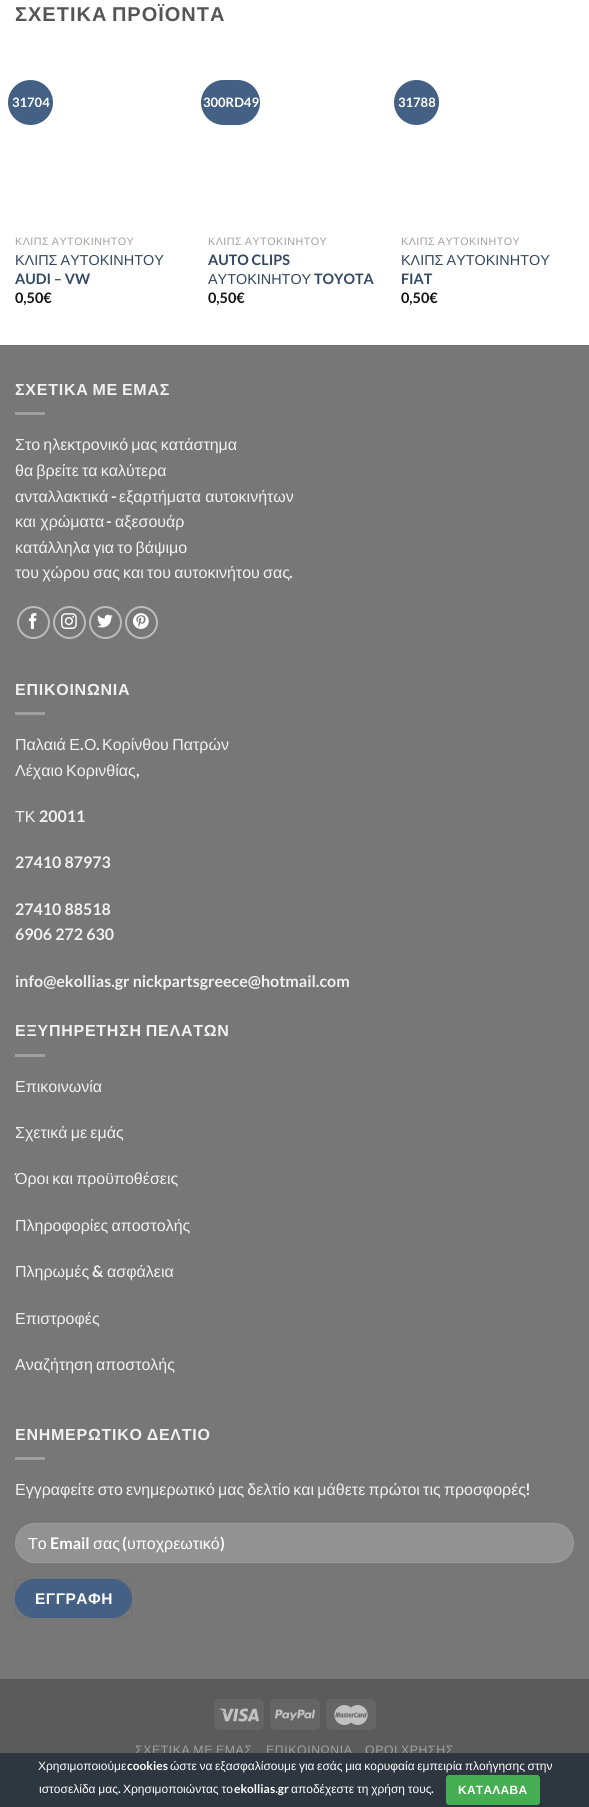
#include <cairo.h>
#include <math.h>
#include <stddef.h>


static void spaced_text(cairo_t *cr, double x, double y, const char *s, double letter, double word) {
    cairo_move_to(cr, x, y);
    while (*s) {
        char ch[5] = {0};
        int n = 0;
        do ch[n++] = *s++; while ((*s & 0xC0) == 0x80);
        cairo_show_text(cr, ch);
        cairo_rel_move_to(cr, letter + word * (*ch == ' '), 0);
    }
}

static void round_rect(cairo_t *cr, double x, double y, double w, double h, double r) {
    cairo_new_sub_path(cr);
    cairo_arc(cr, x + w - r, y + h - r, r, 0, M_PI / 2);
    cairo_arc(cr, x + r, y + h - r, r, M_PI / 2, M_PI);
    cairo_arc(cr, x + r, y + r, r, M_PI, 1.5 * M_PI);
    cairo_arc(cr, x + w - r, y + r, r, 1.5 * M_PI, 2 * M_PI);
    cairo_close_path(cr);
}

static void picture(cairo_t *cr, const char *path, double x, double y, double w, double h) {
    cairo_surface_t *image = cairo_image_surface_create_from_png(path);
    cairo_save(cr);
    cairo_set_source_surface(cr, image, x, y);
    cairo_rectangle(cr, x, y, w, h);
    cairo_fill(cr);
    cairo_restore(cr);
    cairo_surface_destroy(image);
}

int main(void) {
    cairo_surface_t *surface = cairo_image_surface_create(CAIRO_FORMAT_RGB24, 589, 1807);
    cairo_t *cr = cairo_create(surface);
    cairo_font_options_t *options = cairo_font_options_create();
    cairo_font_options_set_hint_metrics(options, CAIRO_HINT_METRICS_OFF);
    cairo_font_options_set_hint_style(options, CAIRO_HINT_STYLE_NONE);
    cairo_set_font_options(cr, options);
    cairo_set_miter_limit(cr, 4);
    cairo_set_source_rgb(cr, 1, 1, 1);
    cairo_paint(cr);
    cairo_select_font_face(cr, "Liberation Sans", CAIRO_FONT_SLANT_NORMAL, CAIRO_FONT_WEIGHT_BOLD);
    cairo_set_font_size(cr, 20);
    cairo_set_source_rgb(cr, 0.333, 0.333, 0.333);
    spaced_text(cr, 15, 21, "ΣΧΕΤΙΚΑ ΠΡΟΪΟΝΤΑ", 1, -2);
    cairo_set_source_rgb(cr, 0.267, 0.376, 0.518);
    cairo_new_path(cr);
    cairo_arc(cr, 30.5, 102.5, 22.5, 0, 2 * M_PI);
    cairo_fill(cr);
    cairo_select_font_face(cr, "Lato", CAIRO_FONT_SLANT_NORMAL, CAIRO_FONT_WEIGHT_BOLD);
    cairo_set_font_size(cr, 13);
    cairo_set_source_rgb(cr, 1, 1, 1);
    cairo_move_to(cr, 12, 107);
    cairo_show_text(cr, "31704");
    cairo_select_font_face(cr, "Liberation Sans", CAIRO_FONT_SLANT_NORMAL, CAIRO_FONT_WEIGHT_NORMAL);
    cairo_set_font_size(cr, 10.75);
    cairo_set_source_rgb(cr, 0.627, 0.627, 0.627);
    spaced_text(cr, 15, 245, "ΚΛΙΠΣ ΑΥΤΟΚΙΝΗΤΟΥ", 0.5, -1);
    cairo_set_font_size(cr, 14.4);
    cairo_set_source_rgb(cr, 0.2, 0.282, 0.384);
    spaced_text(cr, 15, 265, "ΚΛΙΠΣ ΑΥΤΟΚΙΝΗΤΟΥ", 0, -1);
    cairo_select_font_face(cr, "Lato", CAIRO_FONT_SLANT_NORMAL, CAIRO_FONT_WEIGHT_BOLD);
    cairo_move_to(cr, 15, 284);
    cairo_show_text(cr, "AUDI – VW");
    cairo_set_source_rgb(cr, 0.067, 0.067, 0.067);
    cairo_move_to(cr, 15, 303);
    cairo_show_text(cr, "0,50€");
    cairo_set_source_rgb(cr, 0.267, 0.376, 0.518);
    round_rect(cr, 201, 80, 59, 45, 22.5);
    cairo_fill(cr);
    cairo_set_font_size(cr, 13);
    cairo_set_source_rgb(cr, 1, 1, 1);
    cairo_move_to(cr, 203, 107);
    cairo_show_text(cr, "300RD49");
    cairo_select_font_face(cr, "Liberation Sans", CAIRO_FONT_SLANT_NORMAL, CAIRO_FONT_WEIGHT_NORMAL);
    cairo_set_font_size(cr, 10.75);
    cairo_set_source_rgb(cr, 0.627, 0.627, 0.627);
    spaced_text(cr, 208, 245, "ΚΛΙΠΣ ΑΥΤΟΚΙΝΗΤΟΥ", 0.5, -1);
    cairo_select_font_face(cr, "Lato", CAIRO_FONT_SLANT_NORMAL, CAIRO_FONT_WEIGHT_BOLD);
    cairo_set_font_size(cr, 14.4);
    cairo_set_source_rgb(cr, 0.2, 0.282, 0.384);
    cairo_move_to(cr, 208, 265);
    cairo_show_text(cr, "AUTO CLIPS");
    cairo_select_font_face(cr, "Liberation Sans", CAIRO_FONT_SLANT_NORMAL, CAIRO_FONT_WEIGHT_NORMAL);
    cairo_move_to(cr, 208, 284);
    cairo_show_text(cr, "ΑΥΤΟΚΙΝΗΤΟΥ");
    cairo_select_font_face(cr, "Lato", CAIRO_FONT_SLANT_NORMAL, CAIRO_FONT_WEIGHT_BOLD);
    cairo_move_to(cr, 314, 284);
    cairo_show_text(cr, "TOYOTA");
    cairo_set_source_rgb(cr, 0.067, 0.067, 0.067);
    cairo_move_to(cr, 208, 303);
    cairo_show_text(cr, "0,50€");
    cairo_set_source_rgb(cr, 0.267, 0.376, 0.518);
    cairo_new_path(cr);
    cairo_arc(cr, 416.5, 102.5, 22.5, 0, 2 * M_PI);
    cairo_fill(cr);
    cairo_set_font_size(cr, 13);
    cairo_set_source_rgb(cr, 1, 1, 1);
    cairo_move_to(cr, 398, 107);
    cairo_show_text(cr, "31788");
    cairo_select_font_face(cr, "Liberation Sans", CAIRO_FONT_SLANT_NORMAL, CAIRO_FONT_WEIGHT_NORMAL);
    cairo_set_font_size(cr, 10.75);
    cairo_set_source_rgb(cr, 0.627, 0.627, 0.627);
    spaced_text(cr, 401, 245, "ΚΛΙΠΣ ΑΥΤΟΚΙΝΗΤΟΥ", 0.5, -1);
    cairo_set_font_size(cr, 14.4);
    cairo_set_source_rgb(cr, 0.2, 0.282, 0.384);
    spaced_text(cr, 401, 265, "ΚΛΙΠΣ ΑΥΤΟΚΙΝΗΤΟΥ", 0, -1);
    cairo_select_font_face(cr, "Lato", CAIRO_FONT_SLANT_NORMAL, CAIRO_FONT_WEIGHT_BOLD);
    cairo_move_to(cr, 401, 284);
    cairo_show_text(cr, "FIAT");
    cairo_set_source_rgb(cr, 0.067, 0.067, 0.067);
    cairo_move_to(cr, 401, 303);
    cairo_show_text(cr, "0,50€");
    cairo_set_source_rgb(cr, 0.467, 0.467, 0.467);
    cairo_rectangle(cr, 0, 346, 589, 1333);
    cairo_fill(cr);
    cairo_set_source_rgb(cr, 0.443, 0.443, 0.443);
    cairo_rectangle(cr, 0, 345, 589, 1);
    cairo_fill(cr);
    cairo_select_font_face(cr, "Liberation Sans", CAIRO_FONT_SLANT_NORMAL, CAIRO_FONT_WEIGHT_BOLD);
    cairo_set_font_size(cr, 16);
    cairo_set_source_rgb(cr, 0.945, 0.945, 0.945);
    spaced_text(cr, 15, 395, "ΣΧΕΤΙΚΑ ΜΕ ΕΜΑΣ", 0.75, -1.25);
    cairo_set_source_rgb(cr, 0.627, 0.627, 0.627);
    cairo_rectangle(cr, 15, 412, 30, 3);
    cairo_fill(cr);
    cairo_select_font_face(cr, "Liberation Sans", CAIRO_FONT_SLANT_NORMAL, CAIRO_FONT_WEIGHT_NORMAL);
    cairo_set_source_rgb(cr, 0.945, 0.945, 0.945);
    spaced_text(cr, 15, 450, "Στο ηλεκτρονικό μας κατάστημα", 0, -1.25);
    spaced_text(cr, 15, 476, "θα βρείτε τα καλύτερα", 0, -1.25);
    cairo_move_to(cr, 15, 502);
    cairo_show_text(cr, "ανταλλακτικά");
    cairo_select_font_face(cr, "Lato", CAIRO_FONT_SLANT_NORMAL, CAIRO_FONT_WEIGHT_BOLD);
    cairo_move_to(cr, 111, 502);
    cairo_show_text(cr, "-");
    cairo_select_font_face(cr, "Liberation Sans", CAIRO_FONT_SLANT_NORMAL, CAIRO_FONT_WEIGHT_NORMAL);
    cairo_move_to(cr, 119, 502);
    cairo_show_text(cr, "εξαρτήματα αυτοκινήτων");
    cairo_move_to(cr, 15, 527);
    cairo_show_text(cr, "και χρώματα");
    cairo_select_font_face(cr, "Lato", CAIRO_FONT_SLANT_NORMAL, CAIRO_FONT_WEIGHT_BOLD);
    cairo_move_to(cr, 106, 527);
    cairo_show_text(cr, "-");
    cairo_select_font_face(cr, "Liberation Sans", CAIRO_FONT_SLANT_NORMAL, CAIRO_FONT_WEIGHT_NORMAL);
    cairo_move_to(cr, 115, 527);
    cairo_show_text(cr, "αξεσουάρ");
    spaced_text(cr, 15, 553, "κατάλληλα για το βάψιμο", 0, -1.25);
    spaced_text(cr, 15, 578, "του χώρου σας και του αυτοκινήτου σας", 0, -1.25);
    cairo_select_font_face(cr, "Lato", CAIRO_FONT_SLANT_NORMAL, CAIRO_FONT_WEIGHT_BOLD);
    cairo_move_to(cr, 289, 578);
    cairo_show_text(cr, ".");
    cairo_new_path(cr);
    cairo_arc(cr, 33.5, 622.5, 15.5, 0, 2 * M_PI);
    cairo_set_source_rgb(cr, 0.733, 0.733, 0.733);
    cairo_stroke(cr);
    picture(cr, "img1.png", 28, 613, 9, 16);
    cairo_arc(cr, 69.5, 622.5, 15.5, 0, 2 * M_PI);
    cairo_stroke(cr);
    picture(cr, "img2.png", 61, 613, 16, 16);
    cairo_arc(cr, 105.5, 622.5, 15.5, 0, 2 * M_PI);
    cairo_stroke(cr);
    picture(cr, "img3.png", 97, 614, 16, 14);
    cairo_arc(cr, 141.5, 622.5, 15.5, 0, 2 * M_PI);
    cairo_stroke(cr);
    picture(cr, "img4.png", 133, 613, 16, 16);
    cairo_select_font_face(cr, "Liberation Sans", CAIRO_FONT_SLANT_NORMAL, CAIRO_FONT_WEIGHT_BOLD);
    cairo_set_source_rgb(cr, 0.945, 0.945, 0.945);
    spaced_text(cr, 15, 695, "ΕΠΙΚΟΙΝΩΝΙΑ", 0.75, 0);
    cairo_set_source_rgb(cr, 0.627, 0.627, 0.627);
    cairo_rectangle(cr, 15, 712, 30, 3);
    cairo_fill(cr);
    cairo_select_font_face(cr, "Liberation Sans", CAIRO_FONT_SLANT_NORMAL, CAIRO_FONT_WEIGHT_NORMAL);
    cairo_set_source_rgb(cr, 0.945, 0.945, 0.945);
    spaced_text(cr, 15, 750, "Παλαιά Ε", 0, -1);
    cairo_select_font_face(cr, "Lato", CAIRO_FONT_SLANT_NORMAL, CAIRO_FONT_WEIGHT_BOLD);
    cairo_move_to(cr, 80, 750);
    cairo_show_text(cr, ".");
    cairo_select_font_face(cr, "Liberation Sans", CAIRO_FONT_SLANT_NORMAL, CAIRO_FONT_WEIGHT_NORMAL);
    cairo_move_to(cr, 84, 750);
    cairo_show_text(cr, "Ο");
    cairo_select_font_face(cr, "Lato", CAIRO_FONT_SLANT_NORMAL, CAIRO_FONT_WEIGHT_BOLD);
    cairo_move_to(cr, 96, 750);
    cairo_show_text(cr, ".");
    cairo_select_font_face(cr, "Liberation Sans", CAIRO_FONT_SLANT_NORMAL, CAIRO_FONT_WEIGHT_NORMAL);
    spaced_text(cr, 102, 750, "Κορίνθου Πατρών", 0, -1);
    spaced_text(cr, 15, 776, "Λέχαιο Κορινθίας", 0, -1.25);
    cairo_select_font_face(cr, "Lato", CAIRO_FONT_SLANT_NORMAL, CAIRO_FONT_WEIGHT_BOLD);
    cairo_move_to(cr, 136, 776);
    cairo_show_text(cr, ",");
    cairo_select_font_face(cr, "Liberation Sans", CAIRO_FONT_SLANT_NORMAL, CAIRO_FONT_WEIGHT_NORMAL);
    cairo_move_to(cr, 15, 822);
    cairo_show_text(cr, "ΤΚ");
    cairo_select_font_face(cr, "Lato", CAIRO_FONT_SLANT_NORMAL, CAIRO_FONT_WEIGHT_BOLD);
    cairo_move_to(cr, 39, 822);
    cairo_show_text(cr, "20011");
    cairo_move_to(cr, 15, 868);
    cairo_show_text(cr, "27410 87973");
    cairo_move_to(cr, 15, 915);
    cairo_show_text(cr, "27410 88518");
    cairo_move_to(cr, 15, 940);
    cairo_show_text(cr, "6906 272 630");
    cairo_move_to(cr, 15, 987);
    cairo_show_text(cr, "info@ekollias.gr nickpartsgreece@hotmail.com");
    cairo_select_font_face(cr, "Liberation Sans", CAIRO_FONT_SLANT_NORMAL, CAIRO_FONT_WEIGHT_BOLD);
    spaced_text(cr, 15, 1036, "ΕΞΥΠΗΡΕΤΗΣΗ ΠΕΛΑΤΩΝ", 0.75, -1.25);
    cairo_set_source_rgb(cr, 0.627, 0.627, 0.627);
    cairo_rectangle(cr, 15, 1054, 30, 3);
    cairo_fill(cr);
    cairo_select_font_face(cr, "Liberation Sans", CAIRO_FONT_SLANT_NORMAL, CAIRO_FONT_WEIGHT_NORMAL);
    cairo_set_source_rgb(cr, 0.945, 0.945, 0.945);
    cairo_move_to(cr, 15, 1092);
    cairo_show_text(cr, "Επικοινωνία");
    spaced_text(cr, 15, 1138, "Σχετικά με εμάς", 0, -1.25);
    spaced_text(cr, 15, 1184, "Όροι και προϋποθέσεις", 0, -1.25);
    spaced_text(cr, 15, 1231, "Πληροφορίες αποστολής", 0, -1.25);
    cairo_move_to(cr, 15, 1277);
    cairo_show_text(cr, "Πληρωμές");
    cairo_select_font_face(cr, "Lato", CAIRO_FONT_SLANT_NORMAL, CAIRO_FONT_WEIGHT_BOLD);
    cairo_move_to(cr, 92, 1277);
    cairo_show_text(cr, "&");
    cairo_select_font_face(cr, "Liberation Sans", CAIRO_FONT_SLANT_NORMAL, CAIRO_FONT_WEIGHT_NORMAL);
    cairo_move_to(cr, 107, 1277);
    cairo_show_text(cr, "ασφάλεια");
    cairo_move_to(cr, 15, 1324);
    cairo_show_text(cr, "Επιστροφές");
    spaced_text(cr, 15, 1370, "Αναζήτηση αποστολής", 0, -1.25);
    cairo_select_font_face(cr, "Liberation Sans", CAIRO_FONT_SLANT_NORMAL, CAIRO_FONT_WEIGHT_BOLD);
    spaced_text(cr, 15, 1440, "ΕΝΗΜΕΡΩΤΙΚΟ ΔΕΛΤΙΟ", 0.75, -1.25);
    cairo_set_source_rgb(cr, 0.627, 0.627, 0.627);
    cairo_rectangle(cr, 15, 1457, 30, 3);
    cairo_fill(cr);
    cairo_select_font_face(cr, "Liberation Sans", CAIRO_FONT_SLANT_NORMAL, CAIRO_FONT_WEIGHT_NORMAL);
    cairo_set_source_rgb(cr, 0.945, 0.945, 0.945);
    spaced_text(cr, 15, 1495, "Εγγραφείτε στο ενημερωτικό μας δελτίο και μάθετε πρώτοι τις προσφορές", 0, -1.25);
    cairo_select_font_face(cr, "Lato", CAIRO_FONT_SLANT_NORMAL, CAIRO_FONT_WEIGHT_BOLD);
    cairo_move_to(cr, 525, 1495);
    cairo_show_text(cr, "!");
    cairo_set_source_rgb(cr, 0.573, 0.573, 0.573);
    round_rect(cr, 15, 1523, 559, 40, 20);
    cairo_fill(cr);
    round_rect(cr, 15.5, 1523.5, 558, 39, 19.5);
    cairo_set_source_rgba(cr, 1, 1, 1, 0.09);
    cairo_set_line_width(cr, 1);
    cairo_stroke(cr);
    cairo_select_font_face(cr, "Liberation Sans", CAIRO_FONT_SLANT_NORMAL, CAIRO_FONT_WEIGHT_NORMAL);
    cairo_set_source_rgb(cr, 1, 1, 1);
    cairo_move_to(cr, 28, 1549);
    cairo_show_text(cr, "Το");
    cairo_select_font_face(cr, "Lato", CAIRO_FONT_SLANT_NORMAL, CAIRO_FONT_WEIGHT_BOLD);
    cairo_move_to(cr, 50, 1549);
    cairo_show_text(cr, "Email");
    cairo_select_font_face(cr, "Liberation Sans", CAIRO_FONT_SLANT_NORMAL, CAIRO_FONT_WEIGHT_NORMAL);
    cairo_move_to(cr, 93, 1549);
    cairo_show_text(cr, "σας");
    cairo_select_font_face(cr, "Lato", CAIRO_FONT_SLANT_NORMAL, CAIRO_FONT_WEIGHT_BOLD);
    cairo_move_to(cr, 122, 1549);
    cairo_show_text(cr, "(");
    cairo_select_font_face(cr, "Liberation Sans", CAIRO_FONT_SLANT_NORMAL, CAIRO_FONT_WEIGHT_NORMAL);
    cairo_move_to(cr, 127, 1549);
    cairo_show_text(cr, "υποχρεωτικό");
    cairo_select_font_face(cr, "Lato", CAIRO_FONT_SLANT_NORMAL, CAIRO_FONT_WEIGHT_BOLD);
    cairo_move_to(cr, 220, 1549);
    cairo_show_text(cr, ")");
    cairo_set_source_rgb(cr, 0.267, 0.376, 0.518);
    round_rect(cr, 15, 1579, 117, 39, 19.5);
    cairo_fill(cr);
    cairo_rectangle(cr, 15.5, 1579.5, 116, 38);
    cairo_set_source_rgba(cr, 0, 0, 0, 0.05);
    cairo_stroke(cr);
    cairo_select_font_face(cr, "Liberation Sans", CAIRO_FONT_SLANT_NORMAL, CAIRO_FONT_WEIGHT_BOLD);
    cairo_set_font_size(cr, 15.5);
    cairo_set_source_rgb(cr, 1, 1, 1);
    spaced_text(cr, 35, 1604, "ΕΓΓΡΑΦΗ", 0.5, 0);
    cairo_set_source_rgb(cr, 0.357, 0.357, 0.357);
    cairo_rectangle(cr, 0, 1679, 589, 74);
    cairo_fill(cr);
    cairo_set_source_rgb(cr, 0.396, 0.396, 0.396);
    round_rect(cr, 214, 1699, 50, 31, 5);
    cairo_fill(cr);
    picture(cr, "img5.png", 219, 1708, 40, 14);
    round_rect(cr, 270, 1699, 50, 31, 5);
    cairo_fill(cr);
    picture(cr, "img6.png", 275, 1709, 40, 12);
    round_rect(cr, 326, 1699, 50, 31, 5);
    cairo_fill(cr);
    picture(cr, "img7.png", 334, 1705, 34, 20);
    cairo_select_font_face(cr, "Liberation Sans", CAIRO_FONT_SLANT_NORMAL, CAIRO_FONT_WEIGHT_NORMAL);
    cairo_set_font_size(cr, 12.25);
    cairo_set_source_rgb(cr, 0.627, 0.627, 0.627);
    spaced_text(cr, 135, 1754, "ΣΧΕΤΙΚΑ ΜΕ ΕΜΑΣ", 0.6, -1);
    spaced_text(cr, 266, 1754, "ΕΠΙΚΟΙΝΩΝΙΑ", 0.6, 0);
    spaced_text(cr, 365, 1754, "ΟΡΟΙ ΧΡΗΣΗΣ", 0.6, -1);
    cairo_set_source_rgb(cr, 0.18, 0.212, 0.247);
    cairo_rectangle(cr, 0, 1753, 589, 54);
    cairo_fill(cr);
    cairo_set_font_size(cr, 12);
    cairo_set_source_rgb(cr, 1, 1, 1);
    cairo_move_to(cr, 38, 1770);
    cairo_show_text(cr, "Χρησιμοποιούμε");
    cairo_select_font_face(cr, "Lato", CAIRO_FONT_SLANT_NORMAL, CAIRO_FONT_WEIGHT_BOLD);
    cairo_move_to(cr, 127, 1770);
    cairo_show_text(cr, "cookies");
    cairo_select_font_face(cr, "Liberation Sans", CAIRO_FONT_SLANT_NORMAL, CAIRO_FONT_WEIGHT_NORMAL);
    spaced_text(cr, 170, 1770, "ώστε να εξασφαλίσουμε για εσάς μια κορυφαία εμπειρία πλοήγησης στην", 0, -0.75);
    spaced_text(cr, 39, 1793, "ιστοσελίδα μας", 0, -0.5);
    cairo_select_font_face(cr, "Lato", CAIRO_FONT_SLANT_NORMAL, CAIRO_FONT_WEIGHT_BOLD);
    cairo_move_to(cr, 118, 1793);
    cairo_show_text(cr, ".");
    cairo_select_font_face(cr, "Liberation Sans", CAIRO_FONT_SLANT_NORMAL, CAIRO_FONT_WEIGHT_NORMAL);
    spaced_text(cr, 123, 1793, "Χρησιμοποιώντας το", 0, -0.5);
    cairo_select_font_face(cr, "Lato", CAIRO_FONT_SLANT_NORMAL, CAIRO_FONT_WEIGHT_BOLD);
    cairo_move_to(cr, 234, 1793);
    cairo_show_text(cr, "ekollias.gr");
    cairo_select_font_face(cr, "Liberation Sans", CAIRO_FONT_SLANT_NORMAL, CAIRO_FONT_WEIGHT_NORMAL);
    spaced_text(cr, 291, 1793, "αποδέχεστε τη χρήση τους", 0, -0.5);
    cairo_select_font_face(cr, "Lato", CAIRO_FONT_SLANT_NORMAL, CAIRO_FONT_WEIGHT_BOLD);
    cairo_move_to(cr, 431, 1793);
    cairo_show_text(cr, ".");
    cairo_set_source_rgb(cr, 0.271, 0.682, 0.322);
    round_rect(cr, 446, 1775, 94, 30, 3);
    cairo_fill(cr);
    cairo_select_font_face(cr, "Liberation Sans", CAIRO_FONT_SLANT_NORMAL, CAIRO_FONT_WEIGHT_BOLD);
    cairo_set_source_rgb(cr, 1, 1, 1);
    spaced_text(cr, 458, 1794, "ΚΑΤΑΛΑΒΑ", 0.25, 0);
    cairo_surface_write_to_png(surface, "page.png");
    cairo_font_options_destroy(options);
    cairo_destroy(cr);
    cairo_surface_destroy(surface);
    return 0;
}
